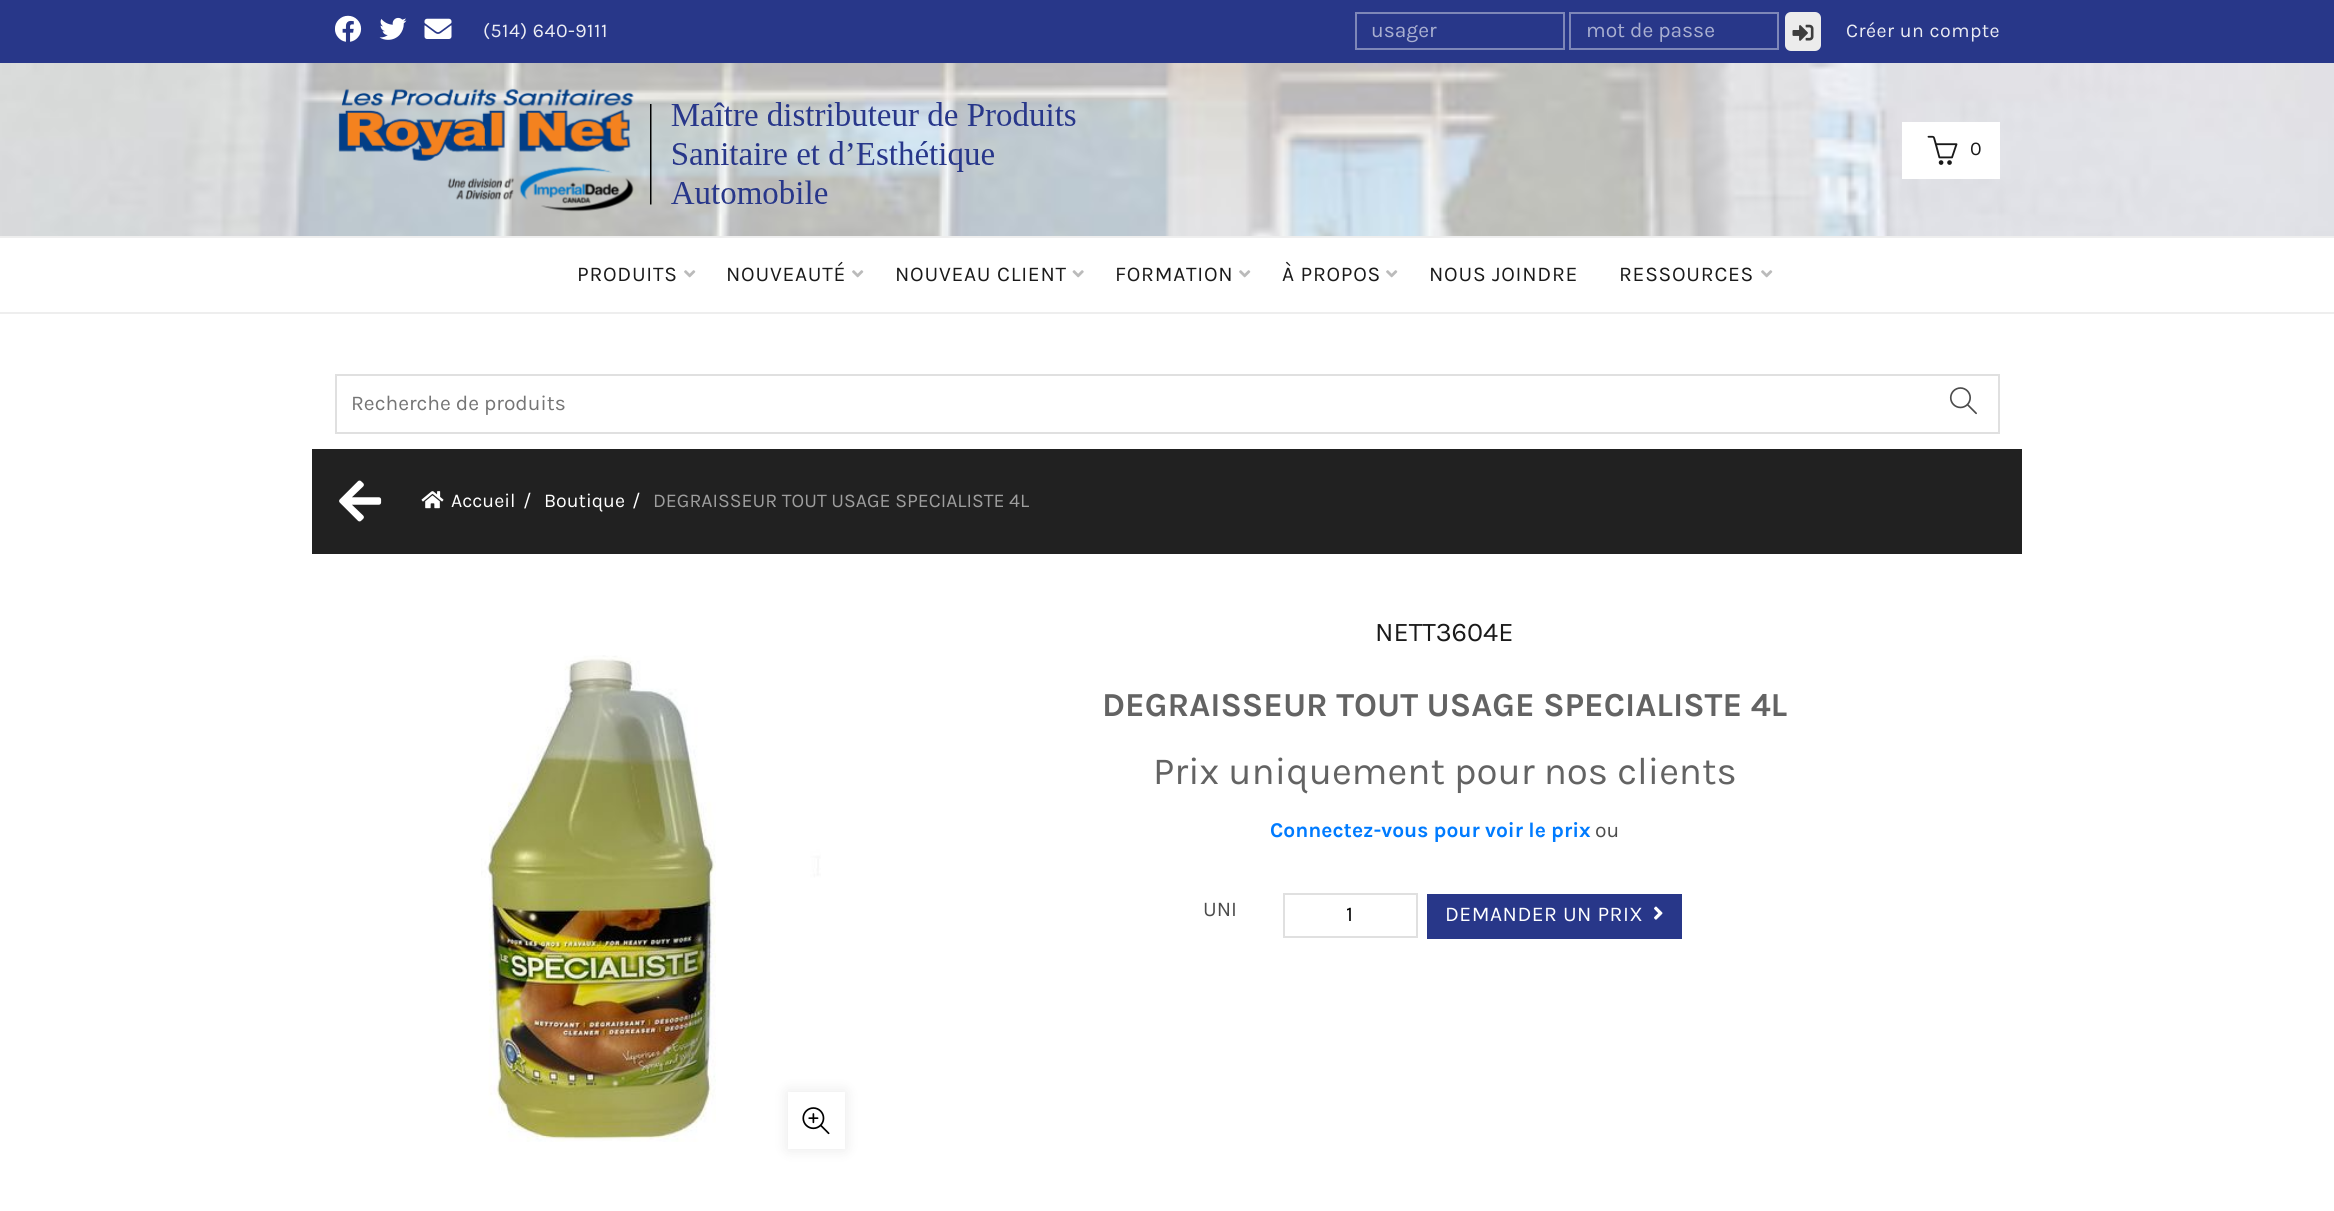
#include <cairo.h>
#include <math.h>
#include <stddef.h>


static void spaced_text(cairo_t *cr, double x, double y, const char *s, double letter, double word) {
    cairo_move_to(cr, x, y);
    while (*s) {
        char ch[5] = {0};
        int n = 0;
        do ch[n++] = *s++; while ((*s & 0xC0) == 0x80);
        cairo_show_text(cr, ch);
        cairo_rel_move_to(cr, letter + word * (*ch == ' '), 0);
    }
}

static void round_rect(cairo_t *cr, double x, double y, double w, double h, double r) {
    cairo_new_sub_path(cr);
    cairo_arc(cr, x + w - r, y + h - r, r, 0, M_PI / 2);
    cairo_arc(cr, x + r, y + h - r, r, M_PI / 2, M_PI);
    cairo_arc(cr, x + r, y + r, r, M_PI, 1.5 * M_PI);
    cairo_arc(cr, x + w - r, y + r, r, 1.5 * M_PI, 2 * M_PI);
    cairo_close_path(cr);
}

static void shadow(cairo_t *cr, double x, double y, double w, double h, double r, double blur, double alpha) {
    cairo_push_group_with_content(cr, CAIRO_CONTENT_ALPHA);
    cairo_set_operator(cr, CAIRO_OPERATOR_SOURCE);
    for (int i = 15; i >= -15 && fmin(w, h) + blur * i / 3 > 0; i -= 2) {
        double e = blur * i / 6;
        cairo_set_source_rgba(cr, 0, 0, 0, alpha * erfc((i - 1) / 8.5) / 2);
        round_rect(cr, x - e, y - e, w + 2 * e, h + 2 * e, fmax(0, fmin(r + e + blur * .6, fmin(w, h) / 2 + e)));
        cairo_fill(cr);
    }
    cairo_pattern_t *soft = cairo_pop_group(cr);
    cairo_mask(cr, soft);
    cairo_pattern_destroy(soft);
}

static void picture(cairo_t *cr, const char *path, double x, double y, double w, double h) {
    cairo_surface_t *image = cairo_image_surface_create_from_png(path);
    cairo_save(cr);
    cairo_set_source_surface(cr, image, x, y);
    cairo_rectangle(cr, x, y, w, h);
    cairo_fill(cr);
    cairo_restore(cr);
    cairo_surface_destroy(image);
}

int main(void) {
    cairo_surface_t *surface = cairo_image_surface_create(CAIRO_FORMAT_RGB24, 2334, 1211);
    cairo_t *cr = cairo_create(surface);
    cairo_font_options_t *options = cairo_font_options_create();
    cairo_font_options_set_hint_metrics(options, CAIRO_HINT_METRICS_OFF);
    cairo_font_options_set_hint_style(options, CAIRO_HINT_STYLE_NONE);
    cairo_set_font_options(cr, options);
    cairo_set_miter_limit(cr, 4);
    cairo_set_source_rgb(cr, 1, 1, 1);
    cairo_paint(cr);
    cairo_set_source_rgb(cr, 0.157, 0.216, 0.537);
    cairo_rectangle(cr, 0, 0, 2334, 63);
    cairo_fill(cr);
    picture(cr, "img1.png", 335, 15, 27, 27);
    picture(cr, "img2.png", 379, 17, 28, 23);
    picture(cr, "img3.png", 424, 18, 28, 21);
    cairo_select_font_face(cr, "Karla", CAIRO_FONT_SLANT_NORMAL, CAIRO_FONT_WEIGHT_NORMAL);
    cairo_set_font_size(cr, 19.5);
    cairo_set_source_rgb(cr, 0.918, 0.922, 0.953);
    spaced_text(cr, 483, 37, "(514) 640-9111", 0.5, 0);
    cairo_rectangle(cr, 1356, 13, 208, 36);
    cairo_set_source_rgb(cr, 0.494, 0.529, 0.722);
    cairo_stroke(cr);
    cairo_set_font_size(cr, 21);
    cairo_set_source_rgb(cr, 0.663, 0.686, 0.816);
    cairo_move_to(cr, 1371, 37);
    cairo_show_text(cr, "usager");
    cairo_rectangle(cr, 1570, 13, 208, 36);
    cairo_set_source_rgb(cr, 0.494, 0.529, 0.722);
    cairo_stroke(cr);
    cairo_set_source_rgb(cr, 0.663, 0.686, 0.816);
    cairo_move_to(cr, 1586, 37);
    cairo_show_text(cr, "mot de passe");
    cairo_set_source_rgb(cr, 0.925, 0.925, 0.925);
    round_rect(cr, 1786, 13, 34, 37, 5);
    cairo_fill_preserve(cr);
    cairo_stroke(cr);
    picture(cr, "img4.png", 1792, 24, 22, 17);
    cairo_set_font_size(cr, 19.5);
    cairo_set_source_rgb(cr, 0.918, 0.922, 0.953);
    spaced_text(cr, 1846, 37, "Créer un compte", 0.5, 0);
    picture(cr, "img5.png", 0, 63, 2334, 173);
    picture(cr, "img6.png", 338, 88, 296, 124);
    picture(cr, "img7.png", 650, 102, 426, 103);
    cairo_set_source_rgb(cr, 1, 1, 1);
    cairo_rectangle(cr, 1902, 122, 98, 57);
    cairo_fill(cr);
    picture(cr, "img8.png", 1927, 135, 31, 30);
    cairo_set_source_rgb(cr, 0.102, 0.102, 0.102);
    cairo_move_to(cr, 1970, 155);
    cairo_show_text(cr, "0");
    cairo_set_source_rgb(cr, 0.933, 0.933, 0.933);
    cairo_rectangle(cr, 0, 236, 2334, 2);
    cairo_fill(cr);
    cairo_rectangle(cr, 0, 312, 2334, 2);
    cairo_fill(cr);
    cairo_set_font_size(cr, 21);
    cairo_set_source_rgb(cr, 0.102, 0.102, 0.102);
    spaced_text(cr, 577, 281, "PRODUITS", 0.75, 0);
    picture(cr, "img9.png", 684, 270, 12, 8);
    spaced_text(cr, 726, 281, "NOUVEAUTÉ", 0.75, 0);
    picture(cr, "img9.png", 852, 270, 12, 8);
    spaced_text(cr, 895, 281, "NOUVEAU CLIENT", 0.75, 0);
    picture(cr, "img10.png", 1072, 270, 12, 8);
    spaced_text(cr, 1115, 281, "FORMATION", 0.75, 0);
    picture(cr, "img9.png", 1239, 270, 12, 8);
    spaced_text(cr, 1282, 281, "À PROPOS", 0.75, 0);
    picture(cr, "img9.png", 1386, 270, 12, 8);
    spaced_text(cr, 1429, 281, "NOUS JOINDRE", 0.75, 0);
    spaced_text(cr, 1619, 281, "RESSOURCES", 0.75, 0);
    picture(cr, "img9.png", 1761, 270, 12, 8);
    cairo_rectangle(cr, 336, 375, 1663, 58);
    cairo_set_source_rgb(cr, 0.878, 0.878, 0.878);
    cairo_stroke(cr);
    cairo_set_source_rgb(cr, 0.459, 0.459, 0.459);
    cairo_move_to(cr, 351, 410);
    cairo_show_text(cr, "Recherche de produits");
    picture(cr, "img11.png", 1949, 387, 28, 28);
    cairo_set_source_rgb(cr, 0.129, 0.129, 0.129);
    cairo_rectangle(cr, 312, 449, 1710, 105);
    cairo_fill(cr);
    picture(cr, "img12.png", 339, 480, 43, 42);
    picture(cr, "img13.png", 421, 491, 23, 18);
    cairo_set_font_size(cr, 19.5);
    cairo_set_source_rgb(cr, 1, 1, 1);
    cairo_move_to(cr, 451, 507);
    cairo_show_text(cr, "Accueil");
    cairo_move_to(cr, 523, 507);
    cairo_show_text(cr, "/");
    cairo_move_to(cr, 544, 507);
    cairo_show_text(cr, "Boutique");
    cairo_move_to(cr, 632, 507);
    cairo_show_text(cr, "/");
    cairo_set_source_rgb(cr, 0.62, 0.62, 0.62);
    cairo_move_to(cr, 653, 507);
    cairo_show_text(cr, "DEGRAISSEUR TOUT USAGE SPECIALISTE 4L");
    picture(cr, "img14.png", 481, 655, 340, 487);
    cairo_set_source_rgb(cr, 0, 0, 0);
    shadow(cr, 788, 1092, 57, 57, 0, 7, 0.1);
    cairo_set_source_rgb(cr, 1, 1, 1);
    cairo_rectangle(cr, 788, 1092, 57, 57);
    cairo_fill(cr);
    picture(cr, "img15.png", 802, 1107, 28, 28);
    cairo_set_font_size(cr, 27);
    cairo_set_source_rgb(cr, 0.102, 0.102, 0.102);
    cairo_move_to(cr, 1375, 641);
    cairo_show_text(cr, "NETT3604E");
    cairo_select_font_face(cr, "Karla", CAIRO_FONT_SLANT_NORMAL, CAIRO_FONT_WEIGHT_BOLD);
    cairo_set_font_size(cr, 33.6);
    cairo_set_source_rgb(cr, 0.388, 0.388, 0.388);
    cairo_move_to(cr, 1102, 716);
    cairo_show_text(cr, "DEGRAISSEUR TOUT USAGE SPECIALISTE 4L");
    cairo_select_font_face(cr, "Karla", CAIRO_FONT_SLANT_NORMAL, CAIRO_FONT_WEIGHT_NORMAL);
    cairo_set_font_size(cr, 38.4);
    cairo_move_to(cr, 1153, 784);
    cairo_show_text(cr, "Prix uniquement pour nos clients");
    cairo_select_font_face(cr, "Karla", CAIRO_FONT_SLANT_NORMAL, CAIRO_FONT_WEIGHT_BOLD);
    cairo_set_font_size(cr, 21);
    cairo_set_source_rgb(cr, 0, 0.482, 1);
    cairo_move_to(cr, 1270, 837);
    cairo_show_text(cr, "Connectez-vous pour voir le prix");
    cairo_select_font_face(cr, "Karla", CAIRO_FONT_SLANT_NORMAL, CAIRO_FONT_WEIGHT_NORMAL);
    cairo_set_source_rgb(cr, 0.298, 0.298, 0.298);
    cairo_move_to(cr, 1595, 837);
    cairo_show_text(cr, "ou");
    cairo_move_to(cr, 1203, 916);
    cairo_show_text(cr, "UNI");
    cairo_rectangle(cr, 1284, 894, 133, 43);
    cairo_set_source_rgb(cr, 0.878, 0.878, 0.878);
    cairo_stroke(cr);
    cairo_set_source_rgb(cr, 0, 0, 0);
    cairo_move_to(cr, 1346, 921);
    cairo_show_text(cr, "1");
    cairo_set_source_rgb(cr, 0.157, 0.216, 0.537);
    cairo_rectangle(cr, 1427, 894, 255, 45);
    cairo_fill(cr);
    cairo_set_source_rgb(cr, 1, 1, 1);
    spaced_text(cr, 1445, 921, "DEMANDER UN PRIX", 0.5, 0);
    picture(cr, "img16.png", 1654, 906, 9, 14);
    cairo_surface_write_to_png(surface, "page.png");
    cairo_font_options_destroy(options);
    cairo_destroy(cr);
    cairo_surface_destroy(surface);
    return 0;
}
